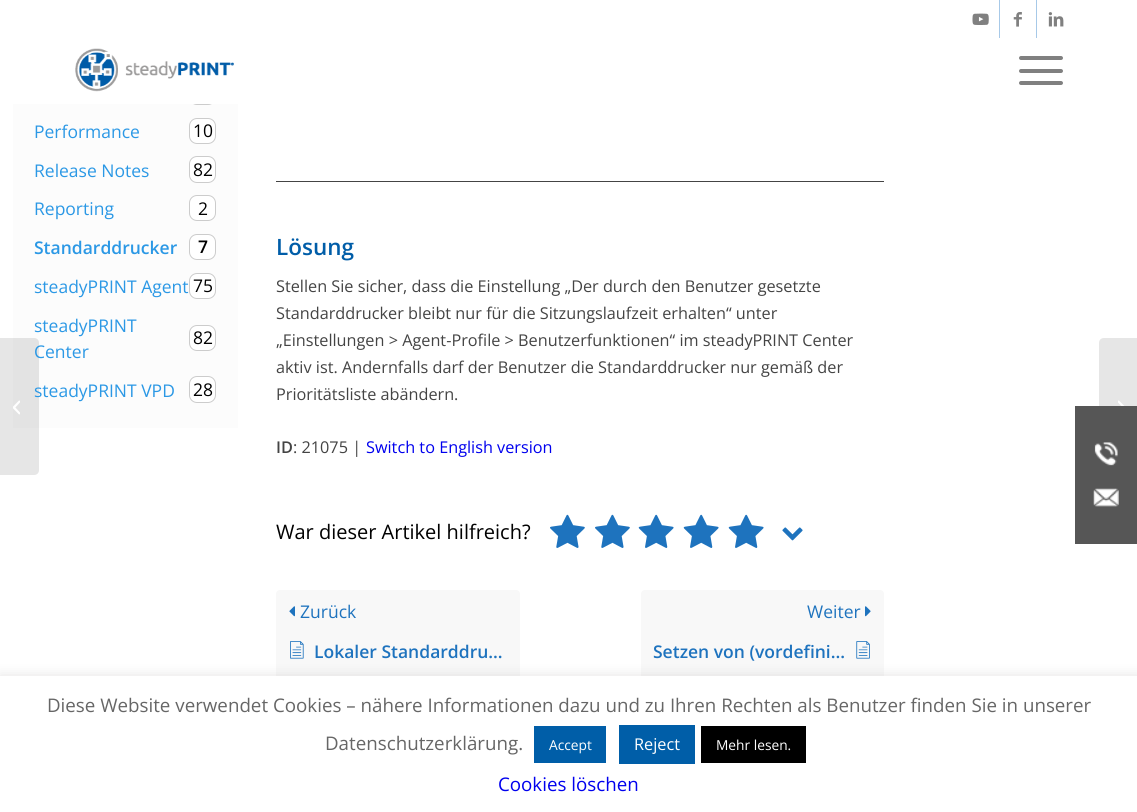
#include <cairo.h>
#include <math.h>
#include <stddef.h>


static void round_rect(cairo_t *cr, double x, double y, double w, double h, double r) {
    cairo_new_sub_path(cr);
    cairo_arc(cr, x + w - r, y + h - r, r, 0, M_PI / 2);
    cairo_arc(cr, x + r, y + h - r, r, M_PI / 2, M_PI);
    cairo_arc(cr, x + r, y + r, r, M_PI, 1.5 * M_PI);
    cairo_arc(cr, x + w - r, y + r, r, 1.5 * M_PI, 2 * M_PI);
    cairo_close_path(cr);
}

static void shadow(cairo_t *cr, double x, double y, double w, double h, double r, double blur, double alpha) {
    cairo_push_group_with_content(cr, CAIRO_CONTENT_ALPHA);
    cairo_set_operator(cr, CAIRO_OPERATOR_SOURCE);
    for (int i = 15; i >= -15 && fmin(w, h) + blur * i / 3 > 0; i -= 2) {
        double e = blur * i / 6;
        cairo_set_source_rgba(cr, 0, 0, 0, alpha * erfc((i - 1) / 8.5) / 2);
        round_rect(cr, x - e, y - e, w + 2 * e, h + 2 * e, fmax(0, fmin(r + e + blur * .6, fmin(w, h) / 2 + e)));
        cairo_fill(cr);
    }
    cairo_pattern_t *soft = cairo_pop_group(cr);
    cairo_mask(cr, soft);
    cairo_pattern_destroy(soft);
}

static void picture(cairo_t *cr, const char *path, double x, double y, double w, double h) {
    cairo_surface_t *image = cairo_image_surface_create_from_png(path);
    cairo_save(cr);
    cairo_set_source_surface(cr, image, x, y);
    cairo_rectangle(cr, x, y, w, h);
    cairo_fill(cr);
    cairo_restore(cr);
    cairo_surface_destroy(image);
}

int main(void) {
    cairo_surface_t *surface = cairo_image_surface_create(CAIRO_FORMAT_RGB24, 1137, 812);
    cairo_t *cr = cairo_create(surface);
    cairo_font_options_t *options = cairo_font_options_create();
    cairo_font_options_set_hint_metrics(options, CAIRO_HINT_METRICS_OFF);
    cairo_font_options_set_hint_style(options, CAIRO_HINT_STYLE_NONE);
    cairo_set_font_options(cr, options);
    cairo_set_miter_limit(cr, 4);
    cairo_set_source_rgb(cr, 1, 1, 1);
    cairo_paint(cr);
    cairo_set_source_rgb(cr, 0.655, 0.788, 0.91);
    cairo_rectangle(cr, 999, 0, 1, 38);
    cairo_fill(cr);
    picture(cr, "img1.png", 972, 13, 17, 12);
    cairo_rectangle(cr, 1036, 0, 1, 38);
    cairo_fill(cr);
    picture(cr, "img2.png", 1013, 12, 9, 15);
    picture(cr, "img3.png", 1048, 12, 16, 15);
    cairo_set_source_rgb(cr, 0.988, 0.988, 0.988);
    cairo_rectangle(cr, 13, 104, 225, 324);
    cairo_fill(cr);
    round_rect(cr, 189.5, 79.5, 26, 25, 7.5);
    cairo_set_source_rgb(cr, 0.8, 0.8, 0.8);
    cairo_set_line_width(cr, 1);
    cairo_stroke(cr);
    cairo_set_source_rgb(cr, 1, 1, 1);
    cairo_rectangle(cr, 189, 79, 27, 25);
    cairo_fill(cr);
    picture(cr, "img4.png", 75, 48, 159, 44);
    cairo_set_source_rgb(cr, 0.502, 0.502, 0.502);
    round_rect(cr, 1019, 69, 44, 4, 2);
    cairo_fill(cr);
    round_rect(cr, 1019, 56, 44, 4, 2);
    cairo_fill(cr);
    round_rect(cr, 1019, 81, 44, 4, 2);
    cairo_fill(cr);
    cairo_set_source_rgba(cr, 0, 0, 0, 0.1);
    cairo_new_path(cr);
    cairo_move_to(cr, 0, 338);
    cairo_line_to(cr, 34, 338);
    cairo_curve_to(cr, 37, 338, 39, 340, 39, 343);
    cairo_line_to(cr, 39, 470);
    cairo_curve_to(cr, 39, 473, 37, 475, 34, 475);
    cairo_line_to(cr, 0, 475);
    cairo_close_path(cr);
    cairo_fill(cr);
    picture(cr, "img5.png", 13, 400, 7, 15);
    cairo_select_font_face(cr, "Open Sans", CAIRO_FONT_SLANT_NORMAL, CAIRO_FONT_WEIGHT_NORMAL);
    cairo_set_font_size(cr, 17.5);
    cairo_set_source_rgb(cr, 0.169, 0.596, 0.898);
    cairo_move_to(cr, 34, 138);
    cairo_show_text(cr, "Performance");
    cairo_set_source_rgb(cr, 1, 1, 1);
    round_rect(cr, 189.5, 118.5, 26, 25, 7.5);
    cairo_fill_preserve(cr);
    cairo_set_source_rgb(cr, 0.8, 0.8, 0.8);
    cairo_stroke(cr);
    cairo_set_source_rgb(cr, 0, 0, 0);
    cairo_move_to(cr, 193, 137);
    cairo_show_text(cr, "10");
    cairo_set_source_rgb(cr, 0.169, 0.596, 0.898);
    cairo_move_to(cr, 34, 177);
    cairo_show_text(cr, "Release Notes");
    cairo_set_source_rgb(cr, 1, 1, 1);
    round_rect(cr, 189.5, 156.5, 26, 26, 7.5);
    cairo_fill_preserve(cr);
    cairo_set_source_rgb(cr, 0.8, 0.8, 0.8);
    cairo_stroke(cr);
    cairo_set_source_rgb(cr, 0, 0, 0);
    cairo_move_to(cr, 193, 176);
    cairo_show_text(cr, "82");
    cairo_set_source_rgb(cr, 0.169, 0.596, 0.898);
    cairo_move_to(cr, 34, 215);
    cairo_show_text(cr, "Reporting");
    cairo_set_source_rgb(cr, 1, 1, 1);
    round_rect(cr, 189.5, 195.5, 26, 25, 7.5);
    cairo_fill_preserve(cr);
    cairo_set_source_rgb(cr, 0.8, 0.8, 0.8);
    cairo_stroke(cr);
    cairo_set_source_rgb(cr, 0, 0, 0);
    cairo_move_to(cr, 198, 215);
    cairo_show_text(cr, "2");
    cairo_select_font_face(cr, "Open Sans SemiBold", CAIRO_FONT_SLANT_NORMAL, CAIRO_FONT_WEIGHT_NORMAL);
    cairo_set_source_rgb(cr, 0.169, 0.596, 0.898);
    cairo_move_to(cr, 34, 254);
    cairo_show_text(cr, "Standarddrucker");
    cairo_set_source_rgb(cr, 1, 1, 1);
    round_rect(cr, 189.5, 234.5, 26, 25, 7.5);
    cairo_fill_preserve(cr);
    cairo_set_source_rgb(cr, 0.8, 0.8, 0.8);
    cairo_stroke(cr);
    cairo_set_source_rgb(cr, 0, 0, 0);
    cairo_move_to(cr, 198, 253);
    cairo_show_text(cr, "7");
    cairo_select_font_face(cr, "Open Sans", CAIRO_FONT_SLANT_NORMAL, CAIRO_FONT_WEIGHT_NORMAL);
    cairo_set_source_rgb(cr, 0.169, 0.596, 0.898);
    cairo_move_to(cr, 34, 293);
    cairo_show_text(cr, "steadyPRINT Agent");
    cairo_set_source_rgb(cr, 1, 1, 1);
    round_rect(cr, 189.5, 273.5, 26, 25, 7.5);
    cairo_fill_preserve(cr);
    cairo_set_source_rgb(cr, 0.8, 0.8, 0.8);
    cairo_stroke(cr);
    cairo_set_source_rgb(cr, 0, 0, 0);
    cairo_move_to(cr, 193, 292);
    cairo_show_text(cr, "75");
    cairo_set_source_rgb(cr, 0.169, 0.596, 0.898);
    cairo_move_to(cr, 34, 332);
    cairo_show_text(cr, "steadyPRINT");
    cairo_move_to(cr, 34, 358);
    cairo_show_text(cr, "Center");
    cairo_set_source_rgb(cr, 1, 1, 1);
    round_rect(cr, 189.5, 325.5, 26, 25, 7.5);
    cairo_fill_preserve(cr);
    cairo_set_source_rgb(cr, 0.8, 0.8, 0.8);
    cairo_stroke(cr);
    cairo_set_source_rgb(cr, 0, 0, 0);
    cairo_move_to(cr, 193, 344);
    cairo_show_text(cr, "82");
    cairo_set_source_rgb(cr, 0.169, 0.596, 0.898);
    cairo_move_to(cr, 34, 397);
    cairo_show_text(cr, "steadyPRINT VPD");
    cairo_set_source_rgb(cr, 1, 1, 1);
    round_rect(cr, 189.5, 376.5, 26, 26, 7.5);
    cairo_fill_preserve(cr);
    cairo_set_source_rgb(cr, 0.8, 0.8, 0.8);
    cairo_stroke(cr);
    cairo_set_source_rgb(cr, 0, 0, 0);
    cairo_move_to(cr, 193, 396);
    cairo_show_text(cr, "28");
    cairo_set_source_rgb(cr, 0.267, 0.267, 0.267);
    cairo_rectangle(cr, 276, 181, 608, 1);
    cairo_fill(cr);
    cairo_select_font_face(cr, "Open Sans SemiBold", CAIRO_FONT_SLANT_NORMAL, CAIRO_FONT_WEIGHT_NORMAL);
    cairo_set_font_size(cr, 22.5);
    cairo_set_source_rgb(cr, 0, 0.365, 0.659);
    cairo_move_to(cr, 276, 255);
    cairo_show_text(cr, "Lösung");
    cairo_select_font_face(cr, "Open Sans", CAIRO_FONT_SLANT_NORMAL, CAIRO_FONT_WEIGHT_NORMAL);
    cairo_set_font_size(cr, 16.25);
    cairo_set_source_rgb(cr, 0.267, 0.267, 0.267);
    cairo_move_to(cr, 276, 292);
    cairo_show_text(cr, "Stellen Sie sicher, dass die Einstellung „Der durch den Benutzer gesetzte");
    cairo_move_to(cr, 276, 319);
    cairo_show_text(cr, "Standarddrucker bleibt nur für die Sitzungslaufzeit erhalten“ unter");
    cairo_move_to(cr, 276, 346);
    cairo_show_text(cr, "„Einstellungen > Agent-Profile > Benutzerfunktionen“ im steadyPRINT Center");
    cairo_move_to(cr, 276, 373);
    cairo_show_text(cr, "aktiv ist. Andernfalls darf der Benutzer die Standarddrucker nur gemäß der");
    cairo_move_to(cr, 276, 400);
    cairo_show_text(cr, "Prioritätsliste abändern.");
    cairo_select_font_face(cr, "Open Sans SemiBold", CAIRO_FONT_SLANT_NORMAL, CAIRO_FONT_WEIGHT_NORMAL);
    cairo_move_to(cr, 276, 453);
    cairo_show_text(cr, "ID");
    cairo_select_font_face(cr, "Open Sans", CAIRO_FONT_SLANT_NORMAL, CAIRO_FONT_WEIGHT_NORMAL);
    cairo_move_to(cr, 293, 453);
    cairo_show_text(cr, ": 21075 |");
    cairo_set_source_rgb(cr, 0, 0, 0.933);
    cairo_move_to(cr, 366, 453);
    cairo_show_text(cr, "Switch to English version");
    cairo_set_font_size(cr, 20);
    cairo_set_source_rgb(cr, 0, 0, 0);
    cairo_move_to(cr, 276, 539);
    cairo_show_text(cr, "War dieser Artikel hilfreich?");
    picture(cr, "img6.png", 550, 514, 35, 34);
    picture(cr, "img6.png", 595, 514, 35, 34);
    picture(cr, "img7.png", 638, 514, 36, 34);
    picture(cr, "img7.png", 683, 514, 36, 34);
    picture(cr, "img7.png", 728, 514, 36, 34);
    picture(cr, "img8.png", 782, 527, 21, 14);
    cairo_set_source_rgb(cr, 0.969, 0.969, 0.969);
    round_rect(cr, 276, 590, 244, 98, 4);
    cairo_fill(cr);
    picture(cr, "img9.png", 289, 606, 6, 11);
    cairo_set_font_size(cr, 17.5);
    cairo_set_source_rgb(cr, 0.118, 0.451, 0.745);
    cairo_move_to(cr, 300, 618);
    cairo_show_text(cr, "Zurück");
    picture(cr, "img10.png", 290, 641, 14, 18);
    cairo_select_font_face(cr, "Open Sans SemiBold", CAIRO_FONT_SLANT_NORMAL, CAIRO_FONT_WEIGHT_NORMAL);
    cairo_move_to(cr, 314, 658);
    cairo_show_text(cr, "Lokaler Standarddru…");
    cairo_set_source_rgb(cr, 0.969, 0.969, 0.969);
    round_rect(cr, 641, 590, 243, 98, 4);
    cairo_fill(cr);
    cairo_select_font_face(cr, "Open Sans", CAIRO_FONT_SLANT_NORMAL, CAIRO_FONT_WEIGHT_NORMAL);
    cairo_set_source_rgb(cr, 0.118, 0.451, 0.745);
    cairo_move_to(cr, 807, 618);
    cairo_show_text(cr, "Weiter");
    picture(cr, "img11.png", 865, 606, 6, 11);
    cairo_select_font_face(cr, "Open Sans SemiBold", CAIRO_FONT_SLANT_NORMAL, CAIRO_FONT_WEIGHT_NORMAL);
    cairo_move_to(cr, 653, 658);
    cairo_show_text(cr, "Setzen von (vordefini…");
    picture(cr, "img12.png", 856, 641, 14, 18);
    cairo_set_source_rgb(cr, 0.902, 0.902, 0.902);
    cairo_new_path(cr);
    cairo_move_to(cr, 1104, 338);
    cairo_line_to(cr, 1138, 338);
    cairo_line_to(cr, 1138, 475);
    cairo_line_to(cr, 1104, 475);
    cairo_curve_to(cr, 1101, 475, 1099, 473, 1099, 470);
    cairo_line_to(cr, 1099, 343);
    cairo_curve_to(cr, 1099, 340, 1101, 338, 1104, 338);
    cairo_close_path(cr);
    cairo_fill(cr);
    picture(cr, "img13.png", 1118, 400, 7, 6);
    cairo_set_source_rgb(cr, 0.337, 0.337, 0.337);
    cairo_rectangle(cr, 1075, 406, 62, 138);
    cairo_fill(cr);
    picture(cr, "img14.png", 1093, 442, 26, 65);
    cairo_set_source_rgb(cr, 0.675, 0.671, 0.671);
    shadow(cr, 0, 675, 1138, 136, 0, 6, 0.3);
    cairo_set_source_rgb(cr, 1, 1, 1);
    cairo_rectangle(cr, 0, 676, 1137, 136);
    cairo_fill(cr);
    cairo_select_font_face(cr, "Open Sans", CAIRO_FONT_SLANT_NORMAL, CAIRO_FONT_WEIGHT_NORMAL);
    cairo_set_font_size(cr, 18.75);
    cairo_set_source_rgb(cr, 0.4, 0.4, 0.4);
    cairo_move_to(cr, 47, 712);
    cairo_show_text(cr, "Diese Website verwendet Cookies – nähere Informationen dazu und zu Ihren Rechten als Benutzer finden Sie in unserer");
    cairo_move_to(cr, 325, 750);
    cairo_show_text(cr, "Datenschutzerklärung.");
    cairo_set_source_rgb(cr, 0, 0.369, 0.659);
    cairo_rectangle(cr, 534, 726, 72, 37);
    cairo_fill(cr);
    cairo_set_font_size(cr, 13.75);
    cairo_set_source_rgb(cr, 1, 1, 1);
    cairo_move_to(cr, 549, 750);
    cairo_show_text(cr, "Accept");
    cairo_set_source_rgb(cr, 0, 0.369, 0.659);
    cairo_rectangle(cr, 619, 725, 76, 39);
    cairo_fill(cr);
    cairo_set_font_size(cr, 16.25);
    cairo_set_source_rgb(cr, 1, 1, 1);
    cairo_move_to(cr, 634, 750);
    cairo_show_text(cr, "Reject");
    cairo_set_source_rgb(cr, 0, 0, 0);
    cairo_rectangle(cr, 701, 726, 105, 37);
    cairo_fill(cr);
    cairo_set_font_size(cr, 13.75);
    cairo_set_source_rgb(cr, 1, 1, 1);
    cairo_move_to(cr, 716, 750);
    cairo_show_text(cr, "Mehr lesen.");
    cairo_set_font_size(cr, 18.75);
    cairo_set_source_rgb(cr, 0, 0, 0.933);
    cairo_move_to(cr, 498, 791);
    cairo_show_text(cr, "Cookies löschen");
    cairo_surface_write_to_png(surface, "page.png");
    cairo_font_options_destroy(options);
    cairo_destroy(cr);
    cairo_surface_destroy(surface);
    return 0;
}
